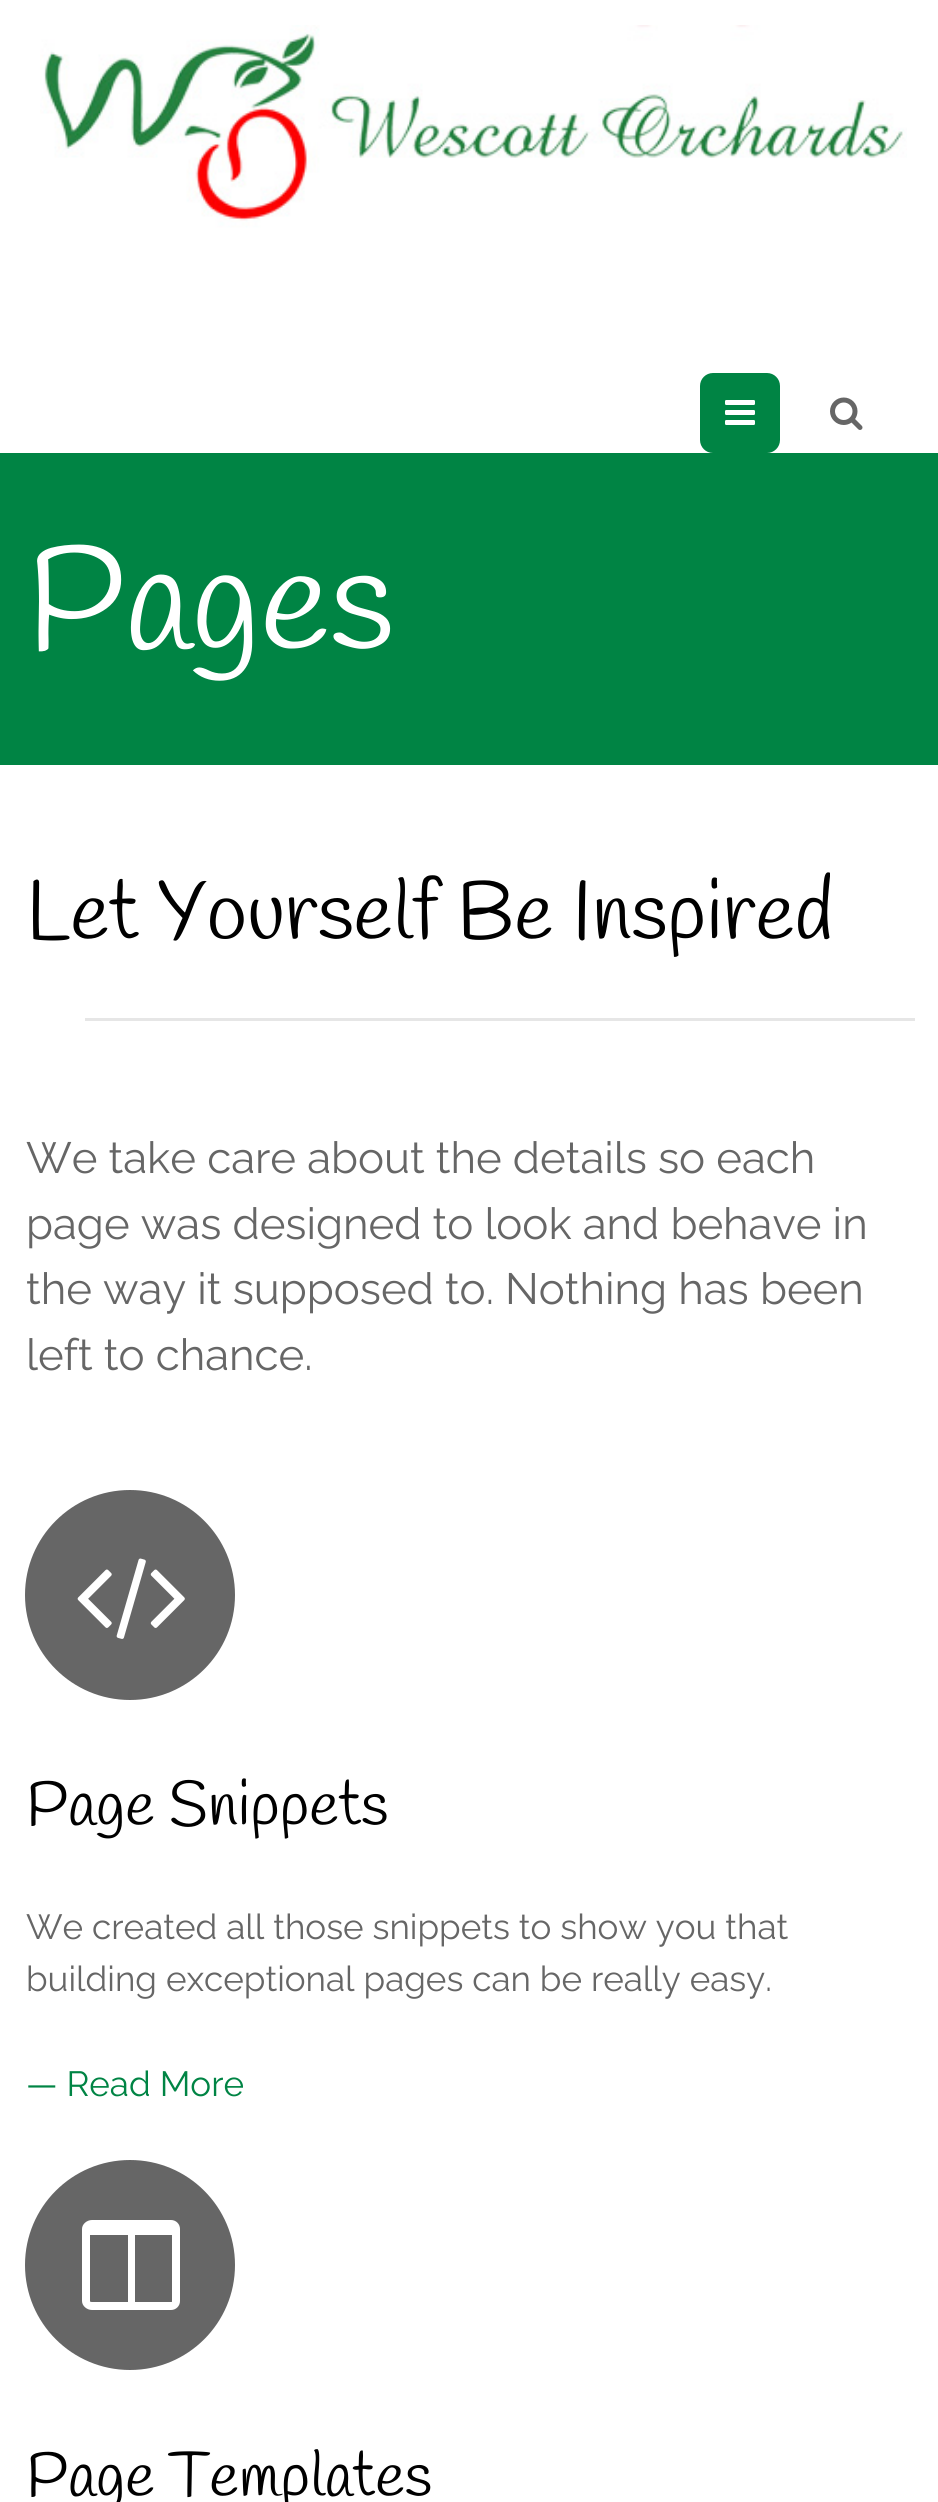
#include <cairo.h>
#include <math.h>
#include <stddef.h>


static void round_rect(cairo_t *cr, double x, double y, double w, double h, double r) {
    cairo_new_sub_path(cr);
    cairo_arc(cr, x + w - r, y + h - r, r, 0, M_PI / 2);
    cairo_arc(cr, x + r, y + h - r, r, M_PI / 2, M_PI);
    cairo_arc(cr, x + r, y + r, r, M_PI, 1.5 * M_PI);
    cairo_arc(cr, x + w - r, y + r, r, 1.5 * M_PI, 2 * M_PI);
    cairo_close_path(cr);
}

static void picture(cairo_t *cr, const char *path, double x, double y, double w, double h) {
    cairo_surface_t *image = cairo_image_surface_create_from_png(path);
    cairo_save(cr);
    cairo_set_source_surface(cr, image, x, y);
    cairo_rectangle(cr, x, y, w, h);
    cairo_fill(cr);
    cairo_restore(cr);
    cairo_surface_destroy(image);
}

int main(void) {
    cairo_surface_t *surface = cairo_image_surface_create(CAIRO_FORMAT_RGB24, 938, 2502);
    cairo_t *cr = cairo_create(surface);
    cairo_font_options_t *options = cairo_font_options_create();
    cairo_font_options_set_hint_metrics(options, CAIRO_HINT_METRICS_OFF);
    cairo_font_options_set_hint_style(options, CAIRO_HINT_STYLE_NONE);
    cairo_set_font_options(cr, options);
    cairo_set_miter_limit(cr, 4);
    cairo_set_source_rgb(cr, 1, 1, 1);
    cairo_paint(cr);
    picture(cr, "img1.png", 40, 25, 867, 203);
    cairo_set_source_rgb(cr, 0, 0.518, 0.267);
    round_rect(cr, 701.5, 374.5, 77, 77, 11.5);
    cairo_fill_preserve(cr);
    cairo_set_line_width(cr, 3);
    cairo_stroke(cr);
    picture(cr, "img2.png", 725, 400, 30, 25);
    picture(cr, "img3.png", 830, 397, 33, 33);
    cairo_rectangle(cr, 0, 453, 938, 312);
    cairo_fill(cr);
    cairo_select_font_face(cr, "Handlee", CAIRO_FONT_SLANT_NORMAL, CAIRO_FONT_WEIGHT_NORMAL);
    cairo_set_font_size(cr, 147.5);
    cairo_set_source_rgb(cr, 1, 1, 1);
    cairo_move_to(cr, 26, 649);
    cairo_show_text(cr, "Pages");
    cairo_set_font_size(cr, 82.5);
    cairo_set_source_rgb(cr, 0, 0, 0);
    cairo_move_to(cr, 26, 939);
    cairo_show_text(cr, "Let Yourself Be Inspired");
    cairo_set_source_rgb(cr, 0.902, 0.902, 0.902);
    cairo_rectangle(cr, 85, 1018, 830, 3);
    cairo_fill(cr);
    cairo_select_font_face(cr, "Raleway Thin", CAIRO_FONT_SLANT_NORMAL, CAIRO_FONT_WEIGHT_NORMAL);
    cairo_set_font_size(cr, 43.75);
    cairo_set_source_rgb(cr, 0.4, 0.4, 0.4);
    cairo_move_to(cr, 26, 1173);
    cairo_show_text(cr, "We take care about the details so each");
    cairo_move_to(cr, 26, 1239);
    cairo_show_text(cr, "page was designed to look and behave in");
    cairo_move_to(cr, 26, 1304);
    cairo_show_text(cr, "the way it supposed to. Nothing has been");
    cairo_move_to(cr, 26, 1370);
    cairo_show_text(cr, "left to chance.");
    cairo_new_path(cr);
    cairo_arc(cr, 130, 1595, 101, 0, 2 * M_PI);
    cairo_fill_preserve(cr);
    cairo_set_line_width(cr, 8);
    cairo_stroke(cr);
    picture(cr, "img4.png", 77, 1558, 108, 81);
    cairo_select_font_face(cr, "Handlee", CAIRO_FONT_SLANT_NORMAL, CAIRO_FONT_WEIGHT_NORMAL);
    cairo_set_font_size(cr, 62.5);
    cairo_set_source_rgb(cr, 0, 0, 0);
    cairo_move_to(cr, 26, 1825);
    cairo_show_text(cr, "Page Snippets");
    cairo_select_font_face(cr, "Raleway Thin", CAIRO_FONT_SLANT_NORMAL, CAIRO_FONT_WEIGHT_NORMAL);
    cairo_set_font_size(cr, 35);
    cairo_set_source_rgb(cr, 0.4, 0.4, 0.4);
    cairo_move_to(cr, 26, 1939);
    cairo_show_text(cr, "We created all those snippets to show you that");
    cairo_move_to(cr, 26, 1991);
    cairo_show_text(cr, "building exceptional pages can be really easy.");
    cairo_set_source_rgb(cr, 0, 0.518, 0.267);
    cairo_move_to(cr, 26, 2096);
    cairo_show_text(cr, "— Read More");
    cairo_set_source_rgb(cr, 0.4, 0.4, 0.4);
    cairo_new_path(cr);
    cairo_arc(cr, 130, 2265, 101, 0, 2 * M_PI);
    cairo_fill_preserve(cr);
    cairo_stroke(cr);
    cairo_set_source_rgb(cr, 1, 1, 1);
    cairo_new_path(cr);
    cairo_move_to(cr, 92, 2302);
    cairo_curve_to(cr, 91, 2302, 90, 2302, 90, 2301);
    cairo_line_to(cr, 90, 2235);
    cairo_line_to(cr, 128, 2235);
    cairo_line_to(cr, 128, 2302);
    cairo_close_path(cr);
    cairo_move_to(cr, 172, 2301);
    cairo_curve_to(cr, 172, 2302, 172, 2302, 171, 2302);
    cairo_line_to(cr, 135, 2302);
    cairo_line_to(cr, 135, 2235);
    cairo_line_to(cr, 172, 2235);
    cairo_close_path(cr);
    cairo_move_to(cr, 180, 2229);
    cairo_curve_to(cr, 180, 2224, 176, 2220, 171, 2220);
    cairo_line_to(cr, 92, 2220);
    cairo_curve_to(cr, 87, 2220, 82, 2224, 82, 2229);
    cairo_line_to(cr, 82, 2301);
    cairo_curve_to(cr, 82, 2306, 87, 2310, 92, 2310);
    cairo_line_to(cr, 171, 2310);
    cairo_curve_to(cr, 176, 2310, 180, 2306, 180, 2301);
    cairo_close_path(cr);
    cairo_fill(cr);
    cairo_select_font_face(cr, "Handlee", CAIRO_FONT_SLANT_NORMAL, CAIRO_FONT_WEIGHT_NORMAL);
    cairo_set_font_size(cr, 62.5);
    cairo_set_source_rgb(cr, 0, 0, 0);
    cairo_move_to(cr, 26, 2496);
    cairo_show_text(cr, "Page Templates");
    cairo_surface_write_to_png(surface, "page.png");
    cairo_font_options_destroy(options);
    cairo_destroy(cr);
    cairo_surface_destroy(surface);
    return 0;
}
